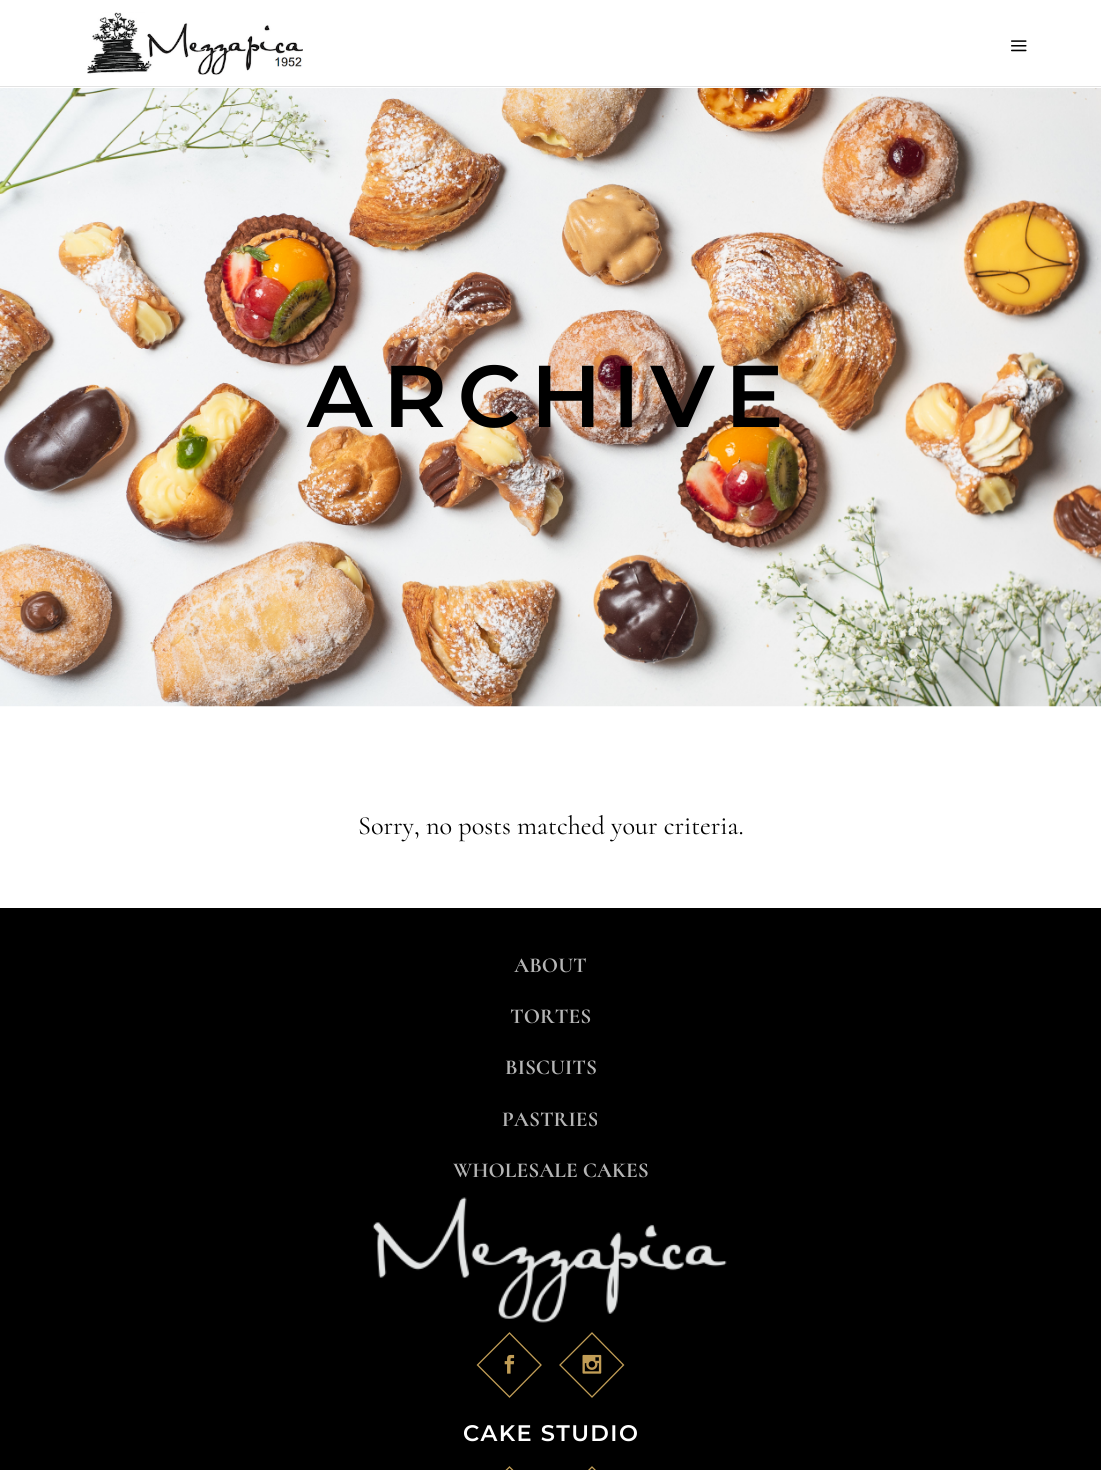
#include <cairo.h>
#include <math.h>
#include <stddef.h>


static void spaced_text(cairo_t *cr, double x, double y, const char *s, double letter, double word) {
    cairo_move_to(cr, x, y);
    while (*s) {
        char ch[5] = {0};
        int n = 0;
        do ch[n++] = *s++; while ((*s & 0xC0) == 0x80);
        cairo_show_text(cr, ch);
        cairo_rel_move_to(cr, letter + word * (*ch == ' '), 0);
    }
}

static void picture(cairo_t *cr, const char *path, double x, double y, double w, double h) {
    cairo_surface_t *image = cairo_image_surface_create_from_png(path);
    cairo_save(cr);
    cairo_set_source_surface(cr, image, x, y);
    cairo_rectangle(cr, x, y, w, h);
    cairo_fill(cr);
    cairo_restore(cr);
    cairo_surface_destroy(image);
}

int main(void) {
    cairo_surface_t *surface = cairo_image_surface_create(CAIRO_FORMAT_RGB24, 1101, 1470);
    cairo_t *cr = cairo_create(surface);
    cairo_font_options_t *options = cairo_font_options_create();
    cairo_font_options_set_hint_metrics(options, CAIRO_HINT_METRICS_OFF);
    cairo_font_options_set_hint_style(options, CAIRO_HINT_STYLE_NONE);
    cairo_set_font_options(cr, options);
    cairo_set_miter_limit(cr, 4);
    cairo_set_source_rgb(cr, 1, 1, 1);
    cairo_paint(cr);
    cairo_set_source_rgb(cr, 0.89, 0.89, 0.89);
    cairo_rectangle(cr, 0, 86, 1101, 1);
    cairo_fill(cr);
    picture(cr, "img1.png", 87, 12, 216, 63);
    picture(cr, "img2.png", 1011, 40, 16, 12);
    picture(cr, "img3.png", 0, 88, 1101, 619);
    cairo_select_font_face(cr, "Montserrat SemiBold", CAIRO_FONT_SLANT_NORMAL, CAIRO_FONT_WEIGHT_NORMAL);
    cairo_set_font_size(cr, 87.5);
    cairo_set_source_rgb(cr, 0, 0, 0);
    spaced_text(cr, 307, 427, "ARCHIVE", 10.5, 0);
    cairo_select_font_face(cr, "Cormorant", CAIRO_FONT_SLANT_NORMAL, CAIRO_FONT_WEIGHT_NORMAL);
    cairo_set_font_size(cr, 26.25);
    cairo_move_to(cr, 358, 834);
    cairo_show_text(cr, "Sorry, no posts matched your criteria.");
    cairo_rectangle(cr, 0, 908, 1101, 562);
    cairo_fill(cr);
    cairo_select_font_face(cr, "Cormorant", CAIRO_FONT_SLANT_NORMAL, CAIRO_FONT_WEIGHT_BOLD);
    cairo_set_font_size(cr, 21.25);
    cairo_set_source_rgb(cr, 0.71, 0.71, 0.71);
    cairo_move_to(cr, 514, 972);
    cairo_show_text(cr, "ABOUT");
    cairo_move_to(cr, 510, 1023);
    cairo_show_text(cr, "TORTES");
    cairo_move_to(cr, 505, 1074);
    cairo_show_text(cr, "BISCUITS");
    cairo_move_to(cr, 502, 1126);
    cairo_show_text(cr, "PASTRIES");
    cairo_move_to(cr, 453, 1177);
    cairo_show_text(cr, "WHOLESALE CAKES");
    picture(cr, "img4.png", 372, 1197, 355, 126);
    cairo_new_path(cr);
    cairo_move_to(cr, 509.5, 1333);
    cairo_line_to(cr, 541, 1365);
    cairo_line_to(cr, 509.5, 1397);
    cairo_line_to(cr, 477.5, 1365);
    cairo_close_path(cr);
    cairo_set_source_rgb(cr, 0.757, 0.616, 0.337);
    cairo_set_line_width(cr, 1.3);
    cairo_stroke(cr);
    picture(cr, "img5.png", 504, 1354, 11, 20);
    cairo_new_path(cr);
    cairo_move_to(cr, 592, 1333);
    cairo_line_to(cr, 623.5, 1365);
    cairo_line_to(cr, 592, 1397);
    cairo_line_to(cr, 560, 1365);
    cairo_close_path(cr);
    cairo_stroke(cr);
    picture(cr, "img6.png", 582, 1354, 20, 20);
    cairo_select_font_face(cr, "Montserrat SemiBold", CAIRO_FONT_SLANT_NORMAL, CAIRO_FONT_WEIGHT_NORMAL);
    cairo_set_font_size(cr, 22.5);
    cairo_set_source_rgb(cr, 1, 1, 1);
    spaced_text(cr, 463, 1441, "CAKE STUDIO", 1.4, 0);
    cairo_new_path(cr);
    cairo_move_to(cr, 509.5, 1467);
    cairo_line_to(cr, 541, 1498.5);
    cairo_line_to(cr, 509.5, 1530.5);
    cairo_line_to(cr, 477.5, 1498.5);
    cairo_close_path(cr);
    cairo_set_source_rgb(cr, 0.757, 0.616, 0.337);
    cairo_stroke(cr);
    cairo_new_path(cr);
    cairo_move_to(cr, 592, 1467);
    cairo_line_to(cr, 623.5, 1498.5);
    cairo_line_to(cr, 592, 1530.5);
    cairo_line_to(cr, 560, 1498.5);
    cairo_close_path(cr);
    cairo_stroke(cr);
    cairo_surface_write_to_png(surface, "page.png");
    cairo_font_options_destroy(options);
    cairo_destroy(cr);
    cairo_surface_destroy(surface);
    return 0;
}
